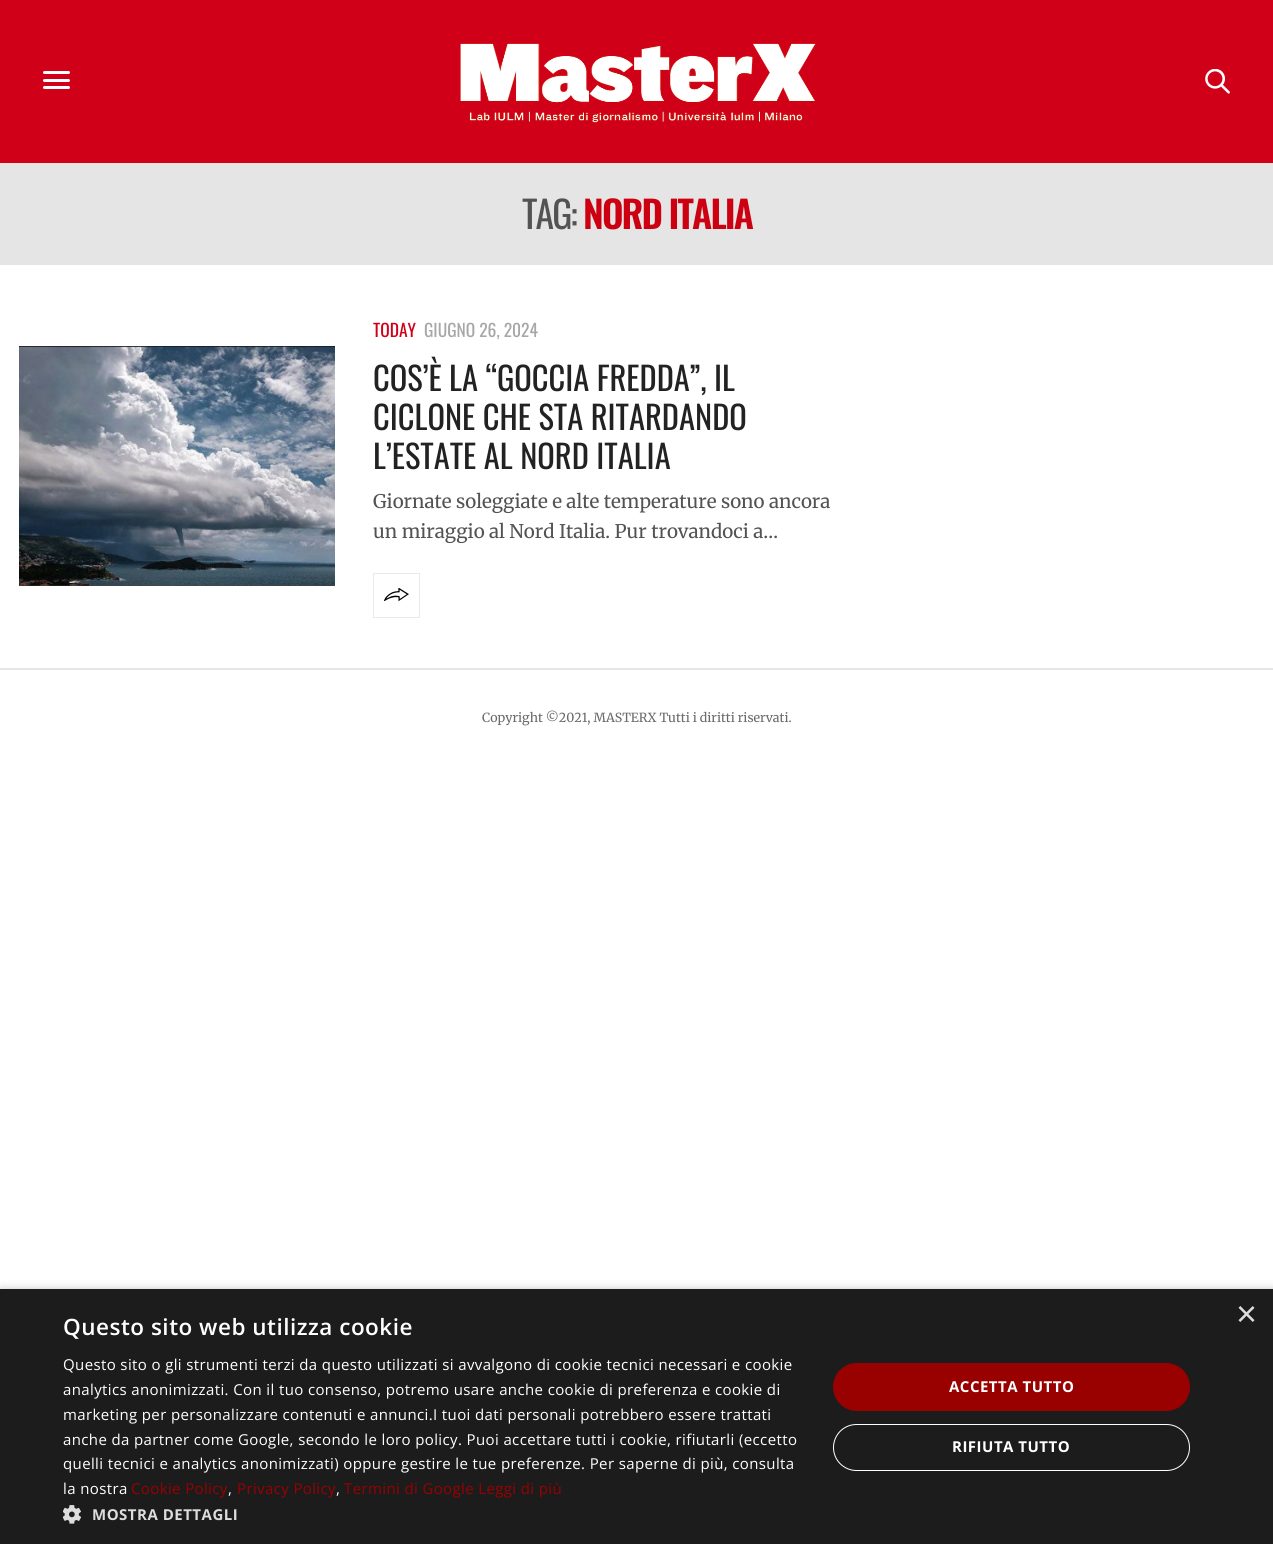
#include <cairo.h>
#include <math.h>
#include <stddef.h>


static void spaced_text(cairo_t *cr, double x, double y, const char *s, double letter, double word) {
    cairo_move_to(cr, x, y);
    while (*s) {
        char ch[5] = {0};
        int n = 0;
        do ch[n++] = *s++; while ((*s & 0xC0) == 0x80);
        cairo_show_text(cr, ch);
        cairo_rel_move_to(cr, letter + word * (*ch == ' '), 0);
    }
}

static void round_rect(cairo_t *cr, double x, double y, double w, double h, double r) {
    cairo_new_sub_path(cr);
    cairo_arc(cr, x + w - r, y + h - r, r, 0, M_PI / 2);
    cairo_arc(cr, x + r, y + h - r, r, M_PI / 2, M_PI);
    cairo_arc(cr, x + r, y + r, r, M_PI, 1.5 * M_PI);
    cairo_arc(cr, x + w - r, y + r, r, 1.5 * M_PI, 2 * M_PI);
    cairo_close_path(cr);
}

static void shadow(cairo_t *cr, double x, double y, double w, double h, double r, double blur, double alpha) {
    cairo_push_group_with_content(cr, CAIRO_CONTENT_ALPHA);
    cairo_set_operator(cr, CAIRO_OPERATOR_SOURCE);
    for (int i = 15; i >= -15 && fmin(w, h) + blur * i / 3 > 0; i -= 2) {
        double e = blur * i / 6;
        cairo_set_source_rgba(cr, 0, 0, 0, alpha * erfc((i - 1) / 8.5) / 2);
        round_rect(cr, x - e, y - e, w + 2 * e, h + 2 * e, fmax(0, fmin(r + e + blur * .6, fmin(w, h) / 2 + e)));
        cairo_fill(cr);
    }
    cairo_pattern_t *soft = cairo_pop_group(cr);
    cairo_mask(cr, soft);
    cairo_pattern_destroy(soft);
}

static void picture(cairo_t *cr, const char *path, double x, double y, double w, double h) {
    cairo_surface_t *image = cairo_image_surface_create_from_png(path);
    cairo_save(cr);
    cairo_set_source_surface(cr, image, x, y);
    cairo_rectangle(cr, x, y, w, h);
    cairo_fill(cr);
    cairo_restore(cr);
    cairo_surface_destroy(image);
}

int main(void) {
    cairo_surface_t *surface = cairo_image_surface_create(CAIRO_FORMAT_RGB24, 1273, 1544);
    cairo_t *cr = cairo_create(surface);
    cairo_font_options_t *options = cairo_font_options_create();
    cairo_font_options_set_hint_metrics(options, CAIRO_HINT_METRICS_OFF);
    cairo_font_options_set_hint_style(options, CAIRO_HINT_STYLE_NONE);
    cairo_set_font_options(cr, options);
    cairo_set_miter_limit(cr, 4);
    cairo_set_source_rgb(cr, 1, 1, 1);
    cairo_paint(cr);
    cairo_set_source_rgb(cr, 0.82, 0, 0.098);
    cairo_rectangle(cr, 0, 0, 1273, 163);
    cairo_fill(cr);
    cairo_set_source_rgb(cr, 1, 1, 1);
    round_rect(cr, 43, 71, 27, 3, 1.5);
    cairo_fill(cr);
    round_rect(cr, 43, 79, 27, 3, 1.5);
    cairo_fill(cr);
    round_rect(cr, 43, 86, 27, 3, 1.5);
    cairo_fill(cr);
    picture(cr, "img1.png", 460, 43, 356, 80);
    picture(cr, "img2.png", 1205, 69, 25, 25);
    cairo_set_source_rgb(cr, 0.898, 0.898, 0.898);
    cairo_rectangle(cr, 0, 163, 1273, 102);
    cairo_fill(cr);
    cairo_select_font_face(cr, "Oswald", CAIRO_FONT_SLANT_NORMAL, CAIRO_FONT_WEIGHT_NORMAL);
    cairo_set_font_size(cr, 37.5);
    cairo_set_source_rgb(cr, 0.329, 0.325, 0.325);
    spaced_text(cr, 522, 229, "TAG:", -1.9, 0);
    cairo_select_font_face(cr, "Oswald SemiBold", CAIRO_FONT_SLANT_NORMAL, CAIRO_FONT_WEIGHT_NORMAL);
    cairo_set_source_rgb(cr, 0.8, 0, 0.067);
    spaced_text(cr, 583, 229, "NORD ITALIA", -1.9, 0);
    picture(cr, "img3.png", 19, 346, 316, 240);
    cairo_select_font_face(cr, "Oswald", CAIRO_FONT_SLANT_NORMAL, CAIRO_FONT_WEIGHT_NORMAL);
    cairo_set_font_size(cr, 17.5);
    cairo_set_source_rgb(cr, 0.82, 0, 0.098);
    cairo_move_to(cr, 373, 337);
    cairo_show_text(cr, "TODAY");
    cairo_set_source_rgb(cr, 0.655, 0.655, 0.655);
    cairo_move_to(cr, 424, 337);
    cairo_show_text(cr, "GIUGNO 26, 2024");
    cairo_set_font_size(cr, 32.5);
    cairo_set_source_rgb(cr, 0.133, 0.133, 0.133);
    cairo_move_to(cr, 373, 391);
    cairo_show_text(cr, "COS’È LA “GOCCIA FREDDA”, IL");
    cairo_move_to(cr, 373, 430);
    cairo_show_text(cr, "CICLONE CHE STA RITARDANDO");
    cairo_move_to(cr, 373, 469);
    cairo_show_text(cr, "L’ESTATE AL NORD ITALIA");
    cairo_select_font_face(cr, "Merriweather", CAIRO_FONT_SLANT_NORMAL, CAIRO_FONT_WEIGHT_NORMAL);
    cairo_set_font_size(cr, 18.75);
    cairo_set_source_rgb(cr, 0.329, 0.325, 0.325);
    cairo_move_to(cr, 373, 508);
    cairo_show_text(cr, "Giornate soleggiate e alte temperature sono ancora");
    cairo_move_to(cr, 373, 538);
    cairo_show_text(cr, "un miraggio al Nord Italia. Pur trovandoci a…");
    cairo_rectangle(cr, 373.5, 573.5, 46, 44);
    cairo_set_source_rgb(cr, 0.914, 0.914, 0.914);
    cairo_set_line_width(cr, 1);
    cairo_stroke(cr);
    picture(cr, "img4.png", 384, 588, 25, 13);
    cairo_set_source_rgb(cr, 0.902, 0.902, 0.902);
    cairo_rectangle(cr, 0, 668, 1273, 2);
    cairo_fill(cr);
    cairo_set_font_size(cr, 12.5);
    cairo_set_source_rgb(cr, 0.416, 0.416, 0.416);
    cairo_move_to(cr, 482, 722);
    cairo_show_text(cr, "Copyright ©2021, MASTERX Tutti i diritti riservati.");
    cairo_set_source_rgb(cr, 0, 0, 0);
    shadow(cr, 1, 1291, 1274, 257, 0, 5, 0.35);
    cairo_set_source_rgb(cr, 0.11, 0.11, 0.11);
    cairo_rectangle(cr, 0, 1289, 1273, 255);
    cairo_fill(cr);
    cairo_select_font_face(cr, "Liberation Sans", CAIRO_FONT_SLANT_NORMAL, CAIRO_FONT_WEIGHT_NORMAL);
    cairo_set_font_size(cr, 36);
    cairo_set_source_rgb(cr, 0.867, 0.867, 0.867);
    cairo_move_to(cr, 1236, 1326);
    cairo_show_text(cr, "×");
    cairo_select_font_face(cr, "Open Sans SemiBold", CAIRO_FONT_SLANT_NORMAL, CAIRO_FONT_WEIGHT_NORMAL);
    cairo_set_font_size(cr, 22.5);
    cairo_set_source_rgb(cr, 1, 1, 1);
    spaced_text(cr, 63, 1335, "Questo sito web utilizza cookie", 0.5, 0);
    cairo_select_font_face(cr, "Open Sans", CAIRO_FONT_SLANT_NORMAL, CAIRO_FONT_WEIGHT_NORMAL);
    cairo_set_font_size(cr, 15);
    spaced_text(cr, 63, 1370, "Questo sito o gli strumenti terzi da questo utilizzati si avvalgono di cookie tecnici necessari e cookie", 0.38, 0);
    spaced_text(cr, 63, 1395, "analytics anonimizzati. Con il tuo consenso, potremo usare anche cookie di preferenza e cookie di", 0.38, 0);
    spaced_text(cr, 63, 1420, "marketing per personalizzare contenuti e annunci.I tuoi dati personali potrebbero essere trattati", 0.38, 0);
    spaced_text(cr, 63, 1445, "anche da partner come Google, secondo le loro policy. Puoi accettare tutti i cookie, rifiutarli (eccetto", 0.38, 0);
    spaced_text(cr, 63, 1469, "quelli tecnici e analytics anonimizzati) oppure gestire le tue preferenze. Per saperne di più, consulta", 0.38, 0);
    spaced_text(cr, 63, 1494, "la nostra", 0.38, 0);
    cairo_set_source_rgb(cr, 0.6, 0, 0);
    spaced_text(cr, 131, 1494, "Cookie Policy", 0.38, 0);
    cairo_set_source_rgb(cr, 1, 1, 1);
    spaced_text(cr, 228, 1494, ",", 0.38, 0);
    cairo_set_source_rgb(cr, 0.6, 0, 0);
    spaced_text(cr, 237, 1494, "Privacy Policy", 0.38, 0);
    cairo_set_source_rgb(cr, 1, 1, 1);
    spaced_text(cr, 336, 1494, ",", 0.38, 0);
    cairo_set_source_rgb(cr, 0.6, 0, 0);
    spaced_text(cr, 344, 1494, "Termini di Google Leggi di più", 0.38, 0);
    picture(cr, "img5.png", 63, 1505, 18, 19);
    cairo_select_font_face(cr, "Open Sans", CAIRO_FONT_SLANT_NORMAL, CAIRO_FONT_WEIGHT_BOLD);
    cairo_set_source_rgb(cr, 0.867, 0.867, 0.867);
    spaced_text(cr, 92, 1520, "MOSTRA DETTAGLI", 0.5, 0);
    cairo_set_source_rgb(cr, 0.6, 0, 0);
    round_rect(cr, 833, 1363, 357, 48, 24);
    cairo_fill(cr);
    cairo_set_source_rgb(cr, 1, 1, 1);
    spaced_text(cr, 949, 1392, "ACCETTA TUTTO", 0.5, 0);
    round_rect(cr, 833.5, 1424.5, 356, 46, 23);
    cairo_stroke(cr);
    spaced_text(cr, 952, 1452, "RIFIUTA TUTTO", 0.5, 0);
    cairo_surface_write_to_png(surface, "page.png");
    cairo_font_options_destroy(options);
    cairo_destroy(cr);
    cairo_surface_destroy(surface);
    return 0;
}
